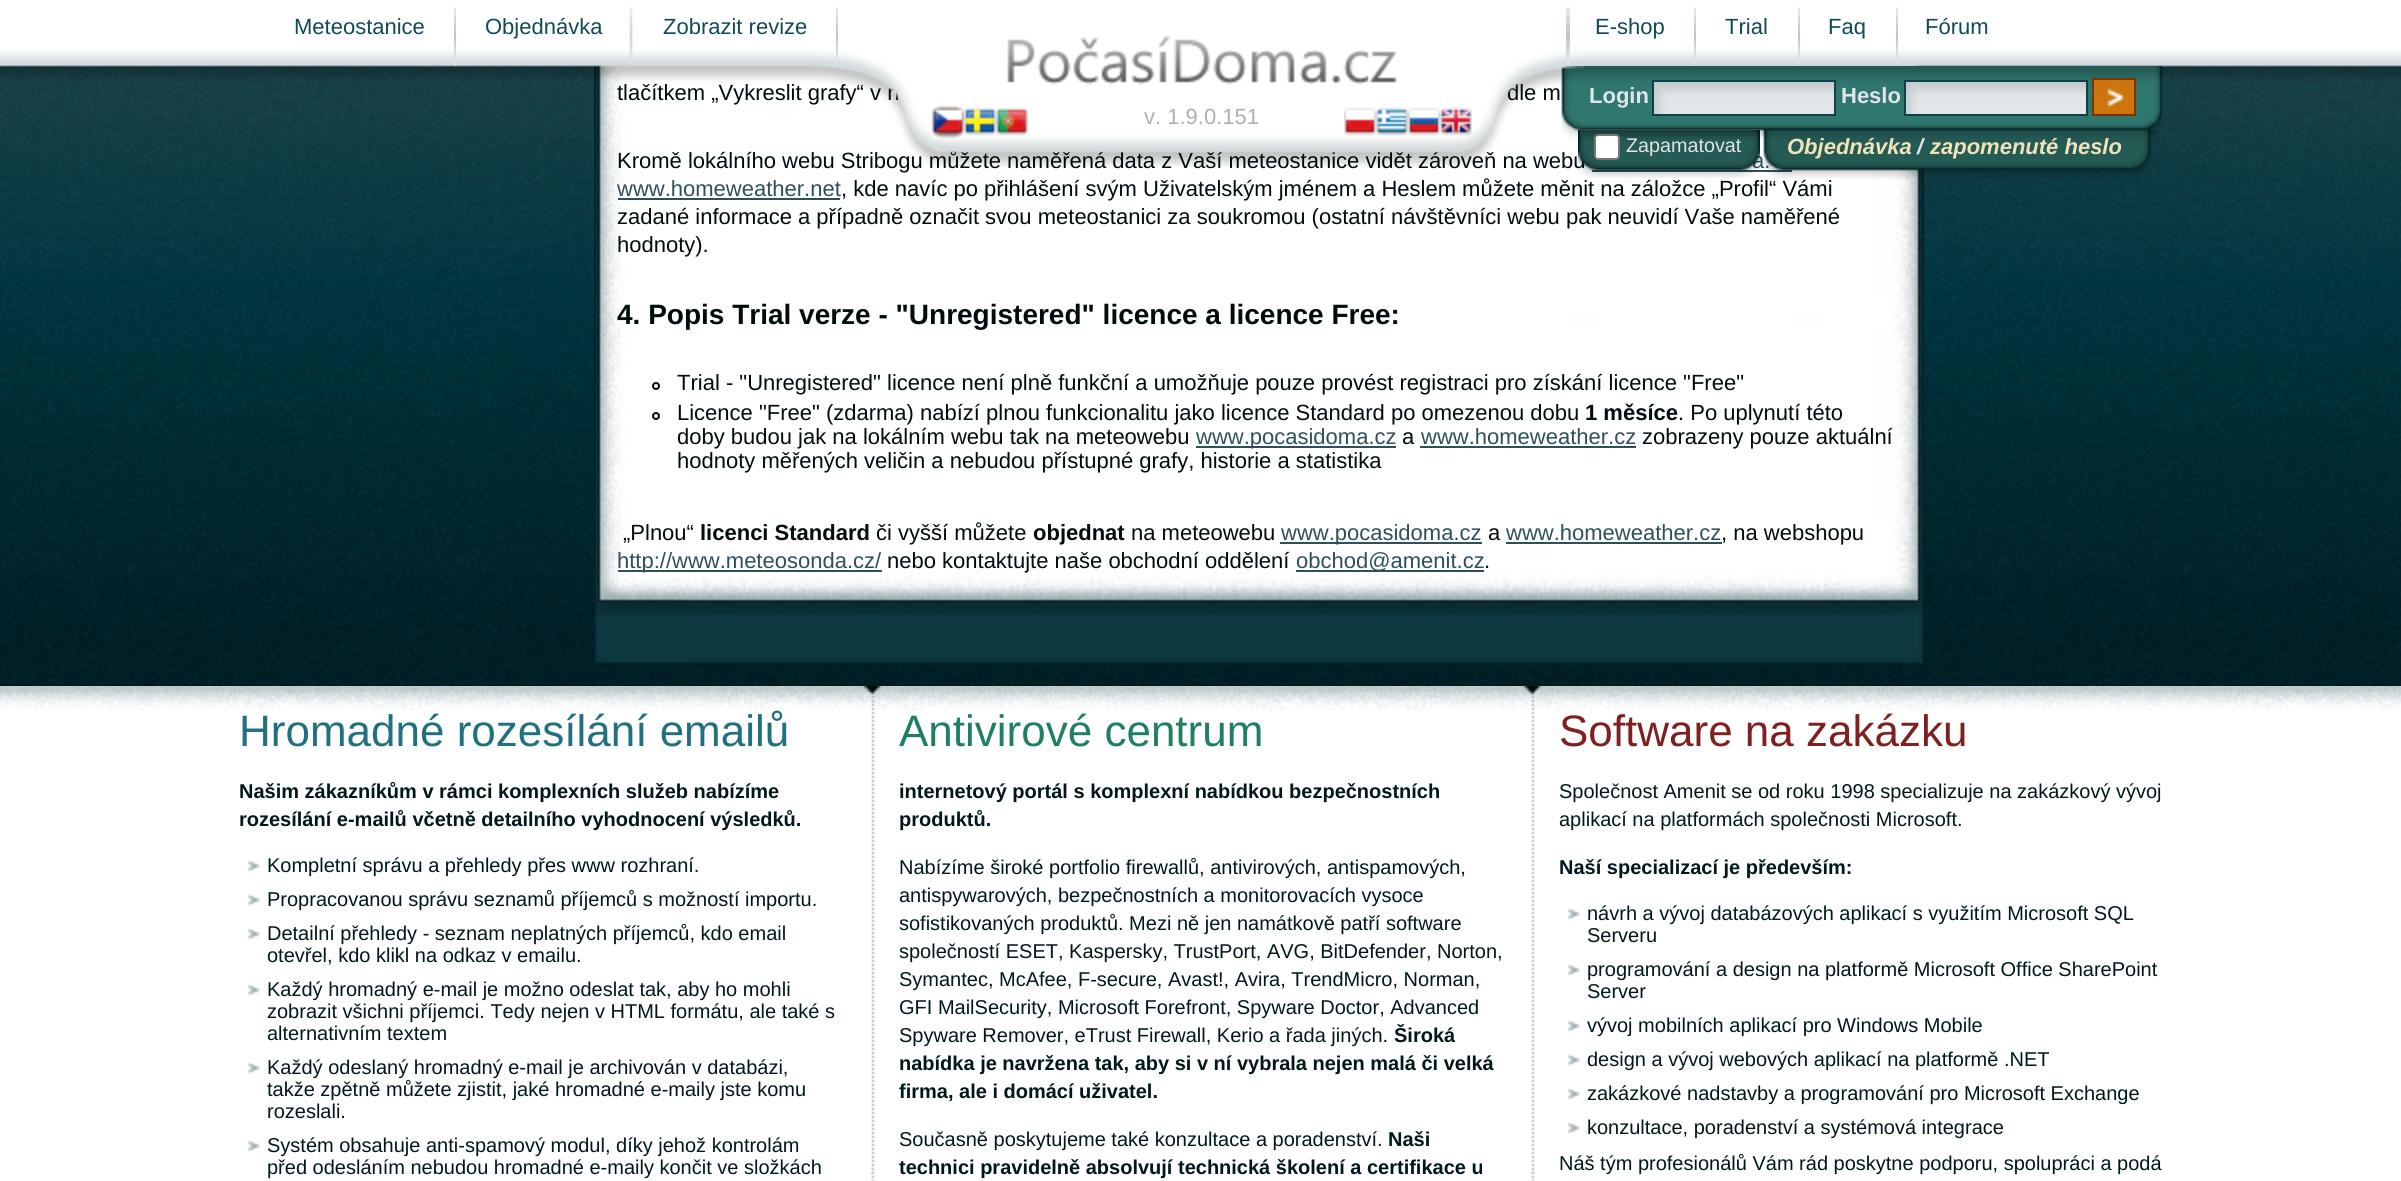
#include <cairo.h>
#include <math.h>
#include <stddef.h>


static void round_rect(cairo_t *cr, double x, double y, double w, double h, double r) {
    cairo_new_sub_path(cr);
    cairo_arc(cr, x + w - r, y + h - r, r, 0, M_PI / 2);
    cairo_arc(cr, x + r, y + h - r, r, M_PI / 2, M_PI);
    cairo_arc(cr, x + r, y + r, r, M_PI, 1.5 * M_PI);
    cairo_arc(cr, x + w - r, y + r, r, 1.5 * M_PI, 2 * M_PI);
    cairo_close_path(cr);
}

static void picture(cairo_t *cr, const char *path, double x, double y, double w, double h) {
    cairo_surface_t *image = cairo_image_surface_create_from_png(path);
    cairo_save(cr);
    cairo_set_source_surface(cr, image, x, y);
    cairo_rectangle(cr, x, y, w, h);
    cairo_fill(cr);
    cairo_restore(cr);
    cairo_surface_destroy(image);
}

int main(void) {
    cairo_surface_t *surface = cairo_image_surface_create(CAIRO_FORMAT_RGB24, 2401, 1181);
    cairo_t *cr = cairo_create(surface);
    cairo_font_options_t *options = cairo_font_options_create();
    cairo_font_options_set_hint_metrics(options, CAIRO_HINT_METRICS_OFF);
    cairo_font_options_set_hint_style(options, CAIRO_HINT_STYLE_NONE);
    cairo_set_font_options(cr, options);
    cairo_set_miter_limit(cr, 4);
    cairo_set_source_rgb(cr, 1, 1, 1);
    cairo_paint(cr);
    picture(cr, "img1.png", 0, 65, 2401, 621);
    picture(cr, "img16.png", 502, 65, 1400, 621);
    picture(cr, "img17.png", 594, 65, 92, 513);
    picture(cr, "img18.png", 686, 65, 1238, 599);
    cairo_select_font_face(cr, "Liberation Sans", CAIRO_FONT_SLANT_NORMAL, CAIRO_FONT_WEIGHT_NORMAL);
    cairo_set_font_size(cr, 22);
    cairo_set_source_rgb(cr, 0, 0.047, 0.055);
    cairo_move_to(cr, 617, 100);
    cairo_show_text(cr, "tlačítkem „Vykreslit grafy“ v n");
    cairo_move_to(cr, 1507, 100);
    cairo_show_text(cr, "dle m");
    cairo_move_to(cr, 617, 168);
    cairo_show_text(cr, "Kromě lokálního webu Stribogu můžete naměřená data z Vaší meteostanice vidět zároveň na webu");
    cairo_set_source_rgb(cr, 0.176, 0.314, 0.353);
    cairo_move_to(cr, 1752, 168);
    cairo_show_text(cr, "a.");
    picture(cr, "img2.png", 0, 0, 2401, 167);
    picture(cr, "img3.png", 454, 6, 2, 60);
    cairo_set_source_rgb(cr, 0.067, 0.29, 0.333);
    cairo_move_to(cr, 294, 34);
    cairo_show_text(cr, "Meteostanice");
    picture(cr, "img4.png", 629, 6, 4, 61);
    cairo_move_to(cr, 485, 34);
    cairo_show_text(cr, "Objednávka");
    picture(cr, "img5.png", 836, 6, 2, 57);
    cairo_move_to(cr, 663, 34);
    cairo_show_text(cr, "Zobrazit revize");
    picture(cr, "img6.png", 1566, 6, 4, 58);
    cairo_move_to(cr, 1595, 34);
    cairo_show_text(cr, "E-shop");
    picture(cr, "img3.png", 1694, 6, 2, 60);
    cairo_move_to(cr, 1725, 34);
    cairo_show_text(cr, "Trial");
    picture(cr, "img3.png", 1798, 6, 2, 60);
    cairo_move_to(cr, 1828, 34);
    cairo_show_text(cr, "Faq");
    picture(cr, "img3.png", 1896, 6, 2, 60);
    cairo_move_to(cr, 1925, 34);
    cairo_show_text(cr, "Fórum");
    picture(cr, "img7.png", 1007, 35, 390, 50);
    picture(cr, "img8.png", 932, 106, 32, 32);
    picture(cr, "img9.png", 932, 107, 32, 29);
    picture(cr, "img10.png", 964, 107, 32, 29);
    picture(cr, "img11.png", 996, 107, 32, 29);
    cairo_set_source_rgb(cr, 0.682, 0.69, 0.686);
    cairo_move_to(cr, 1144, 124);
    cairo_show_text(cr, "v. 1.9.0.151");
    picture(cr, "img12.png", 1344, 107, 32, 29);
    picture(cr, "img13.png", 1376, 107, 32, 29);
    picture(cr, "img14.png", 1408, 107, 32, 29);
    picture(cr, "img15.png", 1440, 107, 32, 29);
    cairo_set_source_rgb(cr, 0.176, 0.314, 0.353);
    cairo_rectangle(cr, 1592, 170, 200, 2);
    cairo_fill(cr);
    cairo_move_to(cr, 617, 196);
    cairo_show_text(cr, "www.homeweather.net");
    cairo_rectangle(cr, 618, 198, 222, 2);
    cairo_fill(cr);
    cairo_set_source_rgb(cr, 0, 0.047, 0.055);
    cairo_move_to(cr, 841, 196);
    cairo_show_text(cr, ", kde navíc po přihlášení svým Uživatelským jménem a Heslem můžete měnit na záložce „Profil“ Vámi");
    cairo_move_to(cr, 617, 224);
    cairo_show_text(cr, "zadané informace a případně označit svou meteostanici za soukromou (ostatní návštěvníci webu pak neuvidí Vaše naměřené");
    cairo_move_to(cr, 617, 252);
    cairo_show_text(cr, "hodnoty).");
    cairo_select_font_face(cr, "Liberation Sans", CAIRO_FONT_SLANT_NORMAL, CAIRO_FONT_WEIGHT_BOLD);
    cairo_set_font_size(cr, 28);
    cairo_move_to(cr, 617, 324);
    cairo_show_text(cr, "4. Popis Trial verze - \"Unregistered\" licence a licence Free:");
    cairo_new_path(cr);
    cairo_arc(cr, 656, 386, 3, 0, 2 * M_PI);
    cairo_stroke(cr);
    cairo_select_font_face(cr, "Liberation Sans", CAIRO_FONT_SLANT_NORMAL, CAIRO_FONT_WEIGHT_NORMAL);
    cairo_set_font_size(cr, 22);
    cairo_move_to(cr, 677, 390);
    cairo_show_text(cr, "Trial - \"Unregistered\" licence není plně funkční a umožňuje pouze provést registraci pro získání licence \"Free\"");
    cairo_new_path(cr);
    cairo_arc(cr, 656, 416, 3, 0, 2 * M_PI);
    cairo_stroke(cr);
    cairo_move_to(cr, 677, 420);
    cairo_show_text(cr, "Licence \"Free\" (zdarma) nabízí plnou funkcionalitu jako licence Standard po omezenou dobu");
    cairo_select_font_face(cr, "Liberation Sans", CAIRO_FONT_SLANT_NORMAL, CAIRO_FONT_WEIGHT_BOLD);
    cairo_move_to(cr, 1585, 420);
    cairo_show_text(cr, "1 měsíce");
    cairo_select_font_face(cr, "Liberation Sans", CAIRO_FONT_SLANT_NORMAL, CAIRO_FONT_WEIGHT_NORMAL);
    cairo_move_to(cr, 1678, 420);
    cairo_show_text(cr, ". Po uplynutí této");
    cairo_move_to(cr, 677, 444);
    cairo_show_text(cr, "doby budou jak na lokálním webu tak na meteowebu");
    cairo_set_source_rgb(cr, 0.176, 0.314, 0.353);
    cairo_rectangle(cr, 1196, 446, 200, 2);
    cairo_fill(cr);
    cairo_move_to(cr, 1196, 444);
    cairo_show_text(cr, "www.pocasidoma.cz");
    cairo_set_source_rgb(cr, 0, 0.047, 0.055);
    cairo_move_to(cr, 1402, 444);
    cairo_show_text(cr, "a");
    cairo_set_source_rgb(cr, 0.176, 0.314, 0.353);
    cairo_move_to(cr, 1421, 444);
    cairo_show_text(cr, "www.homeweather.cz");
    cairo_rectangle(cr, 1420, 446, 216, 2);
    cairo_fill(cr);
    cairo_set_source_rgb(cr, 0, 0.047, 0.055);
    cairo_move_to(cr, 1642, 444);
    cairo_show_text(cr, "zobrazeny pouze aktuální");
    cairo_move_to(cr, 677, 468);
    cairo_show_text(cr, "hodnoty měřených veličin a nebudou přístupné grafy, historie a statistika");
    cairo_move_to(cr, 623, 540);
    cairo_show_text(cr, "„Plnou“");
    cairo_select_font_face(cr, "Liberation Sans", CAIRO_FONT_SLANT_NORMAL, CAIRO_FONT_WEIGHT_BOLD);
    cairo_move_to(cr, 700, 540);
    cairo_show_text(cr, "licenci Standard");
    cairo_select_font_face(cr, "Liberation Sans", CAIRO_FONT_SLANT_NORMAL, CAIRO_FONT_WEIGHT_NORMAL);
    cairo_move_to(cr, 876, 540);
    cairo_show_text(cr, "či vyšší můžete");
    cairo_select_font_face(cr, "Liberation Sans", CAIRO_FONT_SLANT_NORMAL, CAIRO_FONT_WEIGHT_BOLD);
    cairo_move_to(cr, 1033, 540);
    cairo_show_text(cr, "objednat");
    cairo_select_font_face(cr, "Liberation Sans", CAIRO_FONT_SLANT_NORMAL, CAIRO_FONT_WEIGHT_NORMAL);
    cairo_move_to(cr, 1131, 540);
    cairo_show_text(cr, "na meteowebu");
    cairo_set_source_rgb(cr, 0.176, 0.314, 0.353);
    cairo_rectangle(cr, 1280, 542, 202, 2);
    cairo_fill(cr);
    cairo_move_to(cr, 1281, 540);
    cairo_show_text(cr, "www.pocasidoma.cz");
    cairo_set_source_rgb(cr, 0, 0.047, 0.055);
    cairo_move_to(cr, 1488, 540);
    cairo_show_text(cr, "a");
    cairo_set_source_rgb(cr, 0.176, 0.314, 0.353);
    cairo_move_to(cr, 1506, 540);
    cairo_show_text(cr, "www.homeweather.cz");
    cairo_rectangle(cr, 1506, 542, 216, 2);
    cairo_fill(cr);
    cairo_set_source_rgb(cr, 0, 0.047, 0.055);
    cairo_move_to(cr, 1721, 540);
    cairo_show_text(cr, ", na webshopu");
    cairo_set_source_rgb(cr, 0.176, 0.314, 0.353);
    cairo_rectangle(cr, 618, 570, 264, 2);
    cairo_fill(cr);
    cairo_move_to(cr, 617, 568);
    cairo_show_text(cr, "http://www.meteosonda.cz/");
    cairo_set_source_rgb(cr, 0, 0.047, 0.055);
    cairo_move_to(cr, 887, 568);
    cairo_show_text(cr, "nebo kontaktujte naše obchodní oddělení");
    cairo_set_source_rgb(cr, 0.176, 0.314, 0.353);
    cairo_rectangle(cr, 1296, 570, 188, 2);
    cairo_fill(cr);
    cairo_move_to(cr, 1296, 568);
    cairo_show_text(cr, "obchod@amenit.cz");
    cairo_set_source_rgb(cr, 0, 0.047, 0.055);
    cairo_move_to(cr, 1484, 568);
    cairo_show_text(cr, ".");
    picture(cr, "img19.png", 594, 578, 92, 86);
    picture(cr, "img20.png", 1561, 66, 601, 113);
    cairo_select_font_face(cr, "Liberation Sans", CAIRO_FONT_SLANT_NORMAL, CAIRO_FONT_WEIGHT_BOLD);
    cairo_set_source_rgb(cr, 0.878, 0.898, 0.902);
    cairo_move_to(cr, 1589, 103);
    cairo_show_text(cr, "Login");
    picture(cr, "img21.png", 1654, 82, 180, 32);
    cairo_rectangle(cr, 1653, 81, 182, 34);
    cairo_set_source_rgb(cr, 0.051, 0.255, 0.294);
    cairo_stroke(cr);
    cairo_set_source_rgb(cr, 0.878, 0.898, 0.902);
    cairo_move_to(cr, 1841, 103);
    cairo_show_text(cr, "Heslo");
    picture(cr, "img21.png", 1906, 82, 180, 32);
    cairo_rectangle(cr, 1905, 81, 182, 34);
    cairo_set_source_rgb(cr, 0.051, 0.255, 0.294);
    cairo_stroke(cr);
    picture(cr, "img22.png", 2094, 80, 40, 34);
    cairo_rectangle(cr, 2093, 79, 42, 36);
    cairo_set_source_rgb(cr, 0.486, 0.208, 0);
    cairo_stroke(cr);
    picture(cr, "img23.png", 1578, 130, 182, 48);
    cairo_set_source_rgb(cr, 1, 1, 1);
    round_rect(cr, 1595, 135, 24, 24, 3);
    cairo_fill_preserve(cr);
    cairo_set_source_rgb(cr, 0.463, 0.463, 0.463);
    cairo_stroke(cr);
    cairo_select_font_face(cr, "Liberation Sans", CAIRO_FONT_SLANT_NORMAL, CAIRO_FONT_WEIGHT_NORMAL);
    cairo_set_font_size(cr, 19.75);
    cairo_set_source_rgb(cr, 0.878, 0.898, 0.902);
    cairo_move_to(cr, 1626, 152);
    cairo_show_text(cr, "Zapamatovat");
    cairo_select_font_face(cr, "Liberation Sans", CAIRO_FONT_SLANT_ITALIC, CAIRO_FONT_WEIGHT_BOLD);
    cairo_set_font_size(cr, 22);
    cairo_set_source_rgb(cr, 0.945, 0.886, 0.722);
    cairo_move_to(cr, 1787, 154);
    cairo_show_text(cr, "Objednávka");
    cairo_set_source_rgb(cr, 0.878, 0.898, 0.902);
    cairo_move_to(cr, 1917, 154);
    cairo_show_text(cr, "/");
    cairo_set_source_rgb(cr, 0.945, 0.886, 0.722);
    cairo_move_to(cr, 1930, 154);
    cairo_show_text(cr, "zapomenuté heslo");
    picture(cr, "img24.png", 0, 686, 2401, 24);
    picture(cr, "img25.png", 863, 686, 678, 495);
    cairo_select_font_face(cr, "Liberation Sans", CAIRO_FONT_SLANT_NORMAL, CAIRO_FONT_WEIGHT_NORMAL);
    cairo_set_font_size(cr, 44);
    cairo_set_source_rgb(cr, 0.122, 0.443, 0.498);
    cairo_move_to(cr, 239, 746);
    cairo_show_text(cr, "Hromadné rozesílání emailů");
    cairo_select_font_face(cr, "Liberation Sans", CAIRO_FONT_SLANT_NORMAL, CAIRO_FONT_WEIGHT_BOLD);
    cairo_set_font_size(cr, 20);
    cairo_set_source_rgb(cr, 0, 0.094, 0.11);
    cairo_move_to(cr, 239, 798);
    cairo_show_text(cr, "Našim zákazníkům v rámci komplexních služeb nabízíme");
    cairo_move_to(cr, 239, 826);
    cairo_show_text(cr, "rozesílání e-mailů včetně detailního vyhodnocení výsledků.");
    picture(cr, "img26.png", 248, 860, 12, 12);
    cairo_select_font_face(cr, "Liberation Sans", CAIRO_FONT_SLANT_NORMAL, CAIRO_FONT_WEIGHT_NORMAL);
    cairo_move_to(cr, 267, 872);
    cairo_show_text(cr, "Kompletní správu a přehledy přes www rozhraní.");
    picture(cr, "img26.png", 248, 894, 12, 12);
    cairo_move_to(cr, 267, 906);
    cairo_show_text(cr, "Propracovanou správu seznamů příjemců s možností importu.");
    picture(cr, "img26.png", 248, 928, 12, 12);
    cairo_move_to(cr, 267, 940);
    cairo_show_text(cr, "Detailní přehledy - seznam neplatných příjemců, kdo email");
    cairo_move_to(cr, 267, 962);
    cairo_show_text(cr, "otevřel, kdo klikl na odkaz v emailu.");
    picture(cr, "img26.png", 248, 984, 12, 12);
    cairo_move_to(cr, 267, 996);
    cairo_show_text(cr, "Každý hromadný e-mail je možno odeslat tak, aby ho mohli");
    cairo_move_to(cr, 267, 1018);
    cairo_show_text(cr, "zobrazit všichni příjemci. Tedy nejen v HTML formátu, ale také s");
    cairo_move_to(cr, 267, 1040);
    cairo_show_text(cr, "alternativním textem");
    picture(cr, "img26.png", 248, 1062, 12, 12);
    cairo_move_to(cr, 267, 1074);
    cairo_show_text(cr, "Každý odeslaný hromadný e-mail je archivován v databázi,");
    cairo_move_to(cr, 267, 1096);
    cairo_show_text(cr, "takže zpětně můžete zjistit, jaké hromadné e-maily jste komu");
    cairo_move_to(cr, 267, 1118);
    cairo_show_text(cr, "rozeslali.");
    picture(cr, "img26.png", 248, 1140, 12, 12);
    cairo_move_to(cr, 267, 1152);
    cairo_show_text(cr, "Systém obsahuje anti-spamový modul, díky jehož kontrolám");
    cairo_move_to(cr, 267, 1174);
    cairo_show_text(cr, "před odesláním nebudou hromadné e-maily končit ve složkách");
    cairo_set_font_size(cr, 44);
    cairo_set_source_rgb(cr, 0.122, 0.498, 0.388);
    cairo_move_to(cr, 899, 746);
    cairo_show_text(cr, "Antivirové centrum");
    cairo_select_font_face(cr, "Liberation Sans", CAIRO_FONT_SLANT_NORMAL, CAIRO_FONT_WEIGHT_BOLD);
    cairo_set_font_size(cr, 20);
    cairo_set_source_rgb(cr, 0, 0.094, 0.11);
    cairo_move_to(cr, 899, 798);
    cairo_show_text(cr, "internetový portál s komplexní nabídkou bezpečnostních");
    cairo_move_to(cr, 899, 826);
    cairo_show_text(cr, "produktů.");
    cairo_select_font_face(cr, "Liberation Sans", CAIRO_FONT_SLANT_NORMAL, CAIRO_FONT_WEIGHT_NORMAL);
    cairo_move_to(cr, 899, 874);
    cairo_show_text(cr, "Nabízíme široké portfolio firewallů, antivirových, antispamových,");
    cairo_move_to(cr, 899, 902);
    cairo_show_text(cr, "antispywarových, bezpečnostních a monitorovacích vysoce");
    cairo_move_to(cr, 899, 930);
    cairo_show_text(cr, "sofistikovaných produktů. Mezi ně jen namátkově patří software");
    cairo_move_to(cr, 899, 958);
    cairo_show_text(cr, "společností ESET, Kaspersky, TrustPort, AVG, BitDefender, Norton,");
    cairo_move_to(cr, 899, 986);
    cairo_show_text(cr, "Symantec, McAfee, F-secure, Avast!, Avira, TrendMicro, Norman,");
    cairo_move_to(cr, 899, 1014);
    cairo_show_text(cr, "GFI MailSecurity, Microsoft Forefront, Spyware Doctor, Advanced");
    cairo_move_to(cr, 899, 1042);
    cairo_show_text(cr, "Spyware Remover, eTrust Firewall, Kerio a řada jiných.");
    cairo_select_font_face(cr, "Liberation Sans", CAIRO_FONT_SLANT_NORMAL, CAIRO_FONT_WEIGHT_BOLD);
    cairo_move_to(cr, 1394, 1042);
    cairo_show_text(cr, "Široká");
    cairo_move_to(cr, 899, 1070);
    cairo_show_text(cr, "nabídka je navržena tak, aby si v ní vybrala nejen malá či velká");
    cairo_move_to(cr, 899, 1098);
    cairo_show_text(cr, "firma, ale i domácí uživatel.");
    cairo_select_font_face(cr, "Liberation Sans", CAIRO_FONT_SLANT_NORMAL, CAIRO_FONT_WEIGHT_NORMAL);
    cairo_move_to(cr, 899, 1146);
    cairo_show_text(cr, "Současně poskytujeme také konzultace a poradenství.");
    cairo_select_font_face(cr, "Liberation Sans", CAIRO_FONT_SLANT_NORMAL, CAIRO_FONT_WEIGHT_BOLD);
    cairo_move_to(cr, 1388, 1146);
    cairo_show_text(cr, "Naši");
    cairo_move_to(cr, 899, 1174);
    cairo_show_text(cr, "technici pravidelně absolvují technická školení a certifikace u");
    cairo_select_font_face(cr, "Liberation Sans", CAIRO_FONT_SLANT_NORMAL, CAIRO_FONT_WEIGHT_NORMAL);
    cairo_set_font_size(cr, 44);
    cairo_set_source_rgb(cr, 0.498, 0.122, 0.122);
    cairo_move_to(cr, 1559, 746);
    cairo_show_text(cr, "Software na zakázku");
    cairo_set_font_size(cr, 20);
    cairo_set_source_rgb(cr, 0, 0.094, 0.11);
    cairo_move_to(cr, 1559, 798);
    cairo_show_text(cr, "Společnost Amenit se od roku 1998 specializuje na zakázkový vývoj");
    cairo_move_to(cr, 1559, 826);
    cairo_show_text(cr, "aplikací na platformách společnosti Microsoft.");
    cairo_select_font_face(cr, "Liberation Sans", CAIRO_FONT_SLANT_NORMAL, CAIRO_FONT_WEIGHT_BOLD);
    cairo_move_to(cr, 1559, 874);
    cairo_show_text(cr, "Naší specializací je především:");
    picture(cr, "img26.png", 1568, 908, 12, 12);
    cairo_select_font_face(cr, "Liberation Sans", CAIRO_FONT_SLANT_NORMAL, CAIRO_FONT_WEIGHT_NORMAL);
    cairo_move_to(cr, 1587, 920);
    cairo_show_text(cr, "návrh a vývoj databázových aplikací s využitím Microsoft SQL");
    cairo_move_to(cr, 1587, 942);
    cairo_show_text(cr, "Serveru");
    picture(cr, "img26.png", 1568, 964, 12, 12);
    cairo_move_to(cr, 1587, 976);
    cairo_show_text(cr, "programování a design na platformě Microsoft Office SharePoint");
    cairo_move_to(cr, 1587, 998);
    cairo_show_text(cr, "Server");
    picture(cr, "img26.png", 1568, 1020, 12, 12);
    cairo_move_to(cr, 1587, 1032);
    cairo_show_text(cr, "vývoj mobilních aplikací pro Windows Mobile");
    picture(cr, "img26.png", 1568, 1054, 12, 12);
    cairo_move_to(cr, 1587, 1066);
    cairo_show_text(cr, "design a vývoj webových aplikací na platformě .NET");
    picture(cr, "img26.png", 1568, 1088, 12, 12);
    cairo_move_to(cr, 1587, 1100);
    cairo_show_text(cr, "zakázkové nadstavby a programování pro Microsoft Exchange");
    picture(cr, "img26.png", 1568, 1122, 12, 12);
    cairo_move_to(cr, 1587, 1134);
    cairo_show_text(cr, "konzultace, poradenství a systémová integrace");
    cairo_move_to(cr, 1559, 1170);
    cairo_show_text(cr, "Náš tým profesionálů Vám rád poskytne podporu, spolupráci a podá");
    cairo_surface_write_to_png(surface, "page.png");
    cairo_font_options_destroy(options);
    cairo_destroy(cr);
    cairo_surface_destroy(surface);
    return 0;
}
